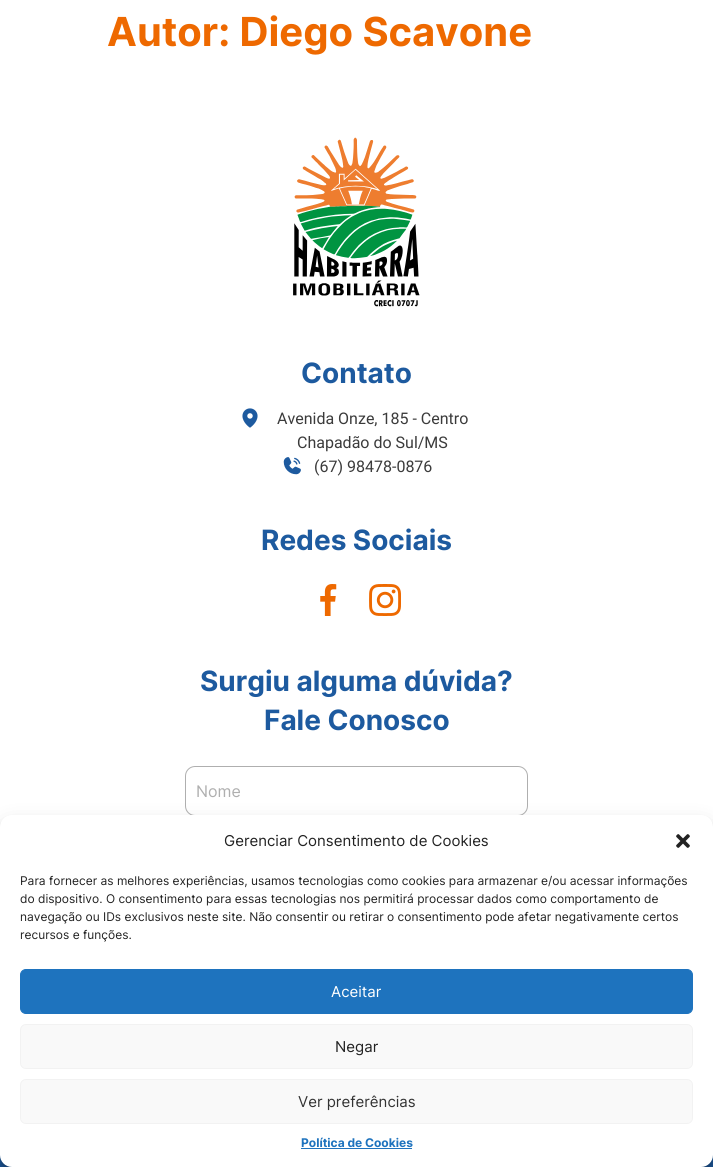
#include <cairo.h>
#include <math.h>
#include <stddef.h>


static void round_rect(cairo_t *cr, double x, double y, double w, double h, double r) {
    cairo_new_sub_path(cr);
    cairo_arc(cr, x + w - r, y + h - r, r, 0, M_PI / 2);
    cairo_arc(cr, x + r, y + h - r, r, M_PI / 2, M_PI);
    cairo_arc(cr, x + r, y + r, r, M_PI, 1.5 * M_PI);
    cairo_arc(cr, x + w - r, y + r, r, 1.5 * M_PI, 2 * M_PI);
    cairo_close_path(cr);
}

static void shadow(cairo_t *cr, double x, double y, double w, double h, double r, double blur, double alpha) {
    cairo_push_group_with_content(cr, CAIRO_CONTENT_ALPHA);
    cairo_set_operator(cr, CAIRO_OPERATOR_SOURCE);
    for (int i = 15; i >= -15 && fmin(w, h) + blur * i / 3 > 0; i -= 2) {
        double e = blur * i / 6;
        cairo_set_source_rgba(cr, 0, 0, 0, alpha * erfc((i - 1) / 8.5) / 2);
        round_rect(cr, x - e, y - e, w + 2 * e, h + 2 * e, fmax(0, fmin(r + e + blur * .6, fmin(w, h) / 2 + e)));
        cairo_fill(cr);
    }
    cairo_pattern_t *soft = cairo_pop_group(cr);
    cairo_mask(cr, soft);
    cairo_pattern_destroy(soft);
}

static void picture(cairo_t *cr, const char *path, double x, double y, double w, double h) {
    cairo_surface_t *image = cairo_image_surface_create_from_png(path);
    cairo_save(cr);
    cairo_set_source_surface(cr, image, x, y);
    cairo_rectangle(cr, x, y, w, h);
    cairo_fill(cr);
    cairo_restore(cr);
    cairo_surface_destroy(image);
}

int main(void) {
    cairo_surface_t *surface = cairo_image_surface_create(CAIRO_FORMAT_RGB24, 713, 1167);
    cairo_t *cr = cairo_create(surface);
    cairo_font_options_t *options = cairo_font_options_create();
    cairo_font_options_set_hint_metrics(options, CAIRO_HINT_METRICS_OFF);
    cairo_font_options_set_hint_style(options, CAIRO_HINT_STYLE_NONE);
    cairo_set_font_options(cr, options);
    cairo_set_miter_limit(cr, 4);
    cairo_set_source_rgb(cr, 1, 1, 1);
    cairo_paint(cr);
    cairo_select_font_face(cr, "Inter", CAIRO_FONT_SLANT_NORMAL, CAIRO_FONT_WEIGHT_BOLD);
    cairo_set_font_size(cr, 40);
    cairo_set_source_rgb(cr, 0.933, 0.412, 0);
    cairo_move_to(cr, 107, 46);
    cairo_show_text(cr, "Autor: Diego Scavone");
    picture(cr, "img1.png", 293, 137, 127, 170);
    cairo_set_font_size(cr, 28);
    cairo_set_source_rgb(cr, 0.114, 0.353, 0.624);
    cairo_move_to(cr, 301, 383);
    cairo_show_text(cr, "Contato");
    picture(cr, "img2.png", 242, 408, 16, 20);
    cairo_select_font_face(cr, "Roboto", CAIRO_FONT_SLANT_NORMAL, CAIRO_FONT_WEIGHT_NORMAL);
    cairo_set_font_size(cr, 16);
    cairo_set_source_rgb(cr, 0.231, 0.231, 0.231);
    cairo_move_to(cr, 277, 424);
    cairo_show_text(cr, "Avenida Onze, 185 - Centro");
    cairo_move_to(cr, 297, 448);
    cairo_show_text(cr, "Chapadão do Sul/MS");
    picture(cr, "img3.png", 283, 457, 18, 18);
    cairo_move_to(cr, 314, 472);
    cairo_show_text(cr, "(67) 98478-0876");
    cairo_select_font_face(cr, "Inter", CAIRO_FONT_SLANT_NORMAL, CAIRO_FONT_WEIGHT_BOLD);
    cairo_set_font_size(cr, 28);
    cairo_set_source_rgb(cr, 0.114, 0.353, 0.624);
    cairo_move_to(cr, 261, 550);
    cairo_show_text(cr, "Redes Sociais");
    picture(cr, "img4.png", 320, 584, 17, 32);
    picture(cr, "img5.png", 369, 584, 32, 32);
    cairo_move_to(cr, 200, 691);
    cairo_show_text(cr, "Surgiu alguma dúvida?");
    cairo_move_to(cr, 264, 730);
    cairo_show_text(cr, "Fale Conosco");
    round_rect(cr, 185.5, 766.5, 342, 49, 9.5);
    cairo_set_source_rgb(cr, 0.686, 0.686, 0.686);
    cairo_set_line_width(cr, 1);
    cairo_stroke(cr);
    cairo_select_font_face(cr, "Inter", CAIRO_FONT_SLANT_NORMAL, CAIRO_FONT_WEIGHT_NORMAL);
    cairo_set_font_size(cr, 16);
    cairo_move_to(cr, 196, 797);
    cairo_show_text(cr, "Nome");
    cairo_set_source_rgb(cr, 0.114, 0.353, 0.624);
    cairo_rectangle(cr, 0, 1155, 713, 12);
    cairo_fill(cr);
    cairo_set_source_rgb(cr, 0, 0, 0);
    shadow(cr, 0, 821, 713, 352, 12, 3, 0.23);
    shadow(cr, 0, 825, 713, 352, 12, 10, 0.19);
    cairo_set_source_rgb(cr, 1, 1, 1);
    round_rect(cr, 0, 815, 713, 352, 12);
    cairo_fill(cr);
    cairo_set_font_size(cr, 15);
    cairo_set_source_rgb(cr, 0.133, 0.133, 0.133);
    cairo_move_to(cr, 224, 846);
    cairo_show_text(cr, "Gerenciar Consentimento de Cookies");
    picture(cr, "img6.png", 676, 834, 14, 14);
    cairo_set_font_size(cr, 12);
    cairo_move_to(cr, 20, 885);
    cairo_show_text(cr, "Para fornecer as melhores experiências, usamos tecnologias como cookies para armazenar e/ou acessar informações");
    cairo_move_to(cr, 20, 903);
    cairo_show_text(cr, "do dispositivo. O consentimento para essas tecnologias nos permitirá processar dados como comportamento de");
    cairo_move_to(cr, 20, 921);
    cairo_show_text(cr, "navegação ou IDs exclusivos neste site. Não consentir ou retirar o consentimento pode afetar negativamente certos");
    cairo_move_to(cr, 20, 939);
    cairo_show_text(cr, "recursos e funções.");
    cairo_set_source_rgb(cr, 0.118, 0.451, 0.745);
    round_rect(cr, 20.5, 969.5, 672, 44, 5.5);
    cairo_fill_preserve(cr);
    cairo_stroke(cr);
    cairo_set_font_size(cr, 15);
    cairo_set_source_rgb(cr, 1, 1, 1);
    cairo_move_to(cr, 331, 997);
    cairo_show_text(cr, "Aceitar");
    cairo_set_source_rgb(cr, 0.976, 0.976, 0.976);
    round_rect(cr, 20.5, 1024.5, 672, 44, 5.5);
    cairo_fill_preserve(cr);
    cairo_set_source_rgb(cr, 0.949, 0.949, 0.949);
    cairo_stroke(cr);
    cairo_set_source_rgb(cr, 0.133, 0.133, 0.133);
    cairo_move_to(cr, 335, 1052);
    cairo_show_text(cr, "Negar");
    cairo_set_source_rgb(cr, 0.976, 0.976, 0.976);
    round_rect(cr, 20.5, 1079.5, 672, 44, 5.5);
    cairo_fill_preserve(cr);
    cairo_set_source_rgb(cr, 0.949, 0.949, 0.949);
    cairo_stroke(cr);
    cairo_set_source_rgb(cr, 0.2, 0.2, 0.2);
    cairo_move_to(cr, 298, 1107);
    cairo_show_text(cr, "Ver preferências");
    cairo_select_font_face(cr, "Inter", CAIRO_FONT_SLANT_NORMAL, CAIRO_FONT_WEIGHT_BOLD);
    cairo_set_font_size(cr, 12);
    cairo_set_source_rgb(cr, 0.118, 0.451, 0.745);
    cairo_move_to(cr, 301, 1147);
    cairo_show_text(cr, "Política de Cookies");
    cairo_rectangle(cr, 301, 1148, 111, 1);
    cairo_fill(cr);
    cairo_surface_write_to_png(surface, "page.png");
    cairo_font_options_destroy(options);
    cairo_destroy(cr);
    cairo_surface_destroy(surface);
    return 0;
}
